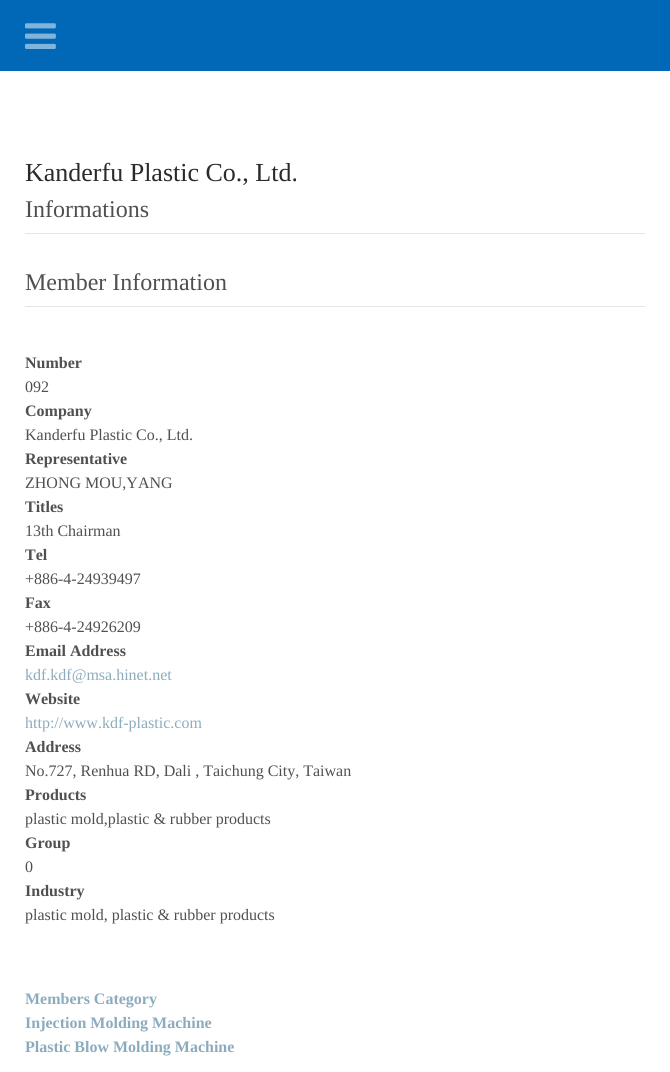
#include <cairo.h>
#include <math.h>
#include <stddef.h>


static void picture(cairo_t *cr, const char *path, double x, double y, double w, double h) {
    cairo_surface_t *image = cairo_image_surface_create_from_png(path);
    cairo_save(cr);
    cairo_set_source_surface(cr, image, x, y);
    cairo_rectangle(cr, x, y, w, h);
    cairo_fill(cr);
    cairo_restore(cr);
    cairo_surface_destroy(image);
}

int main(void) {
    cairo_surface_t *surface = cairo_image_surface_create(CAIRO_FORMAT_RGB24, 670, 1072);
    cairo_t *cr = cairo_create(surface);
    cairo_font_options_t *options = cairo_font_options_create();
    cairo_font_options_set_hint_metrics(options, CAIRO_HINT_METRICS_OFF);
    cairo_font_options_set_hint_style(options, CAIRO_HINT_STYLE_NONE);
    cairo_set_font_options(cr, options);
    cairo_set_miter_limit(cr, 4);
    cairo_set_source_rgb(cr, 0, 0.408, 0.718);
    cairo_paint(cr);
    picture(cr, "img1.png", 25, 23, 31, 26);
    cairo_set_source_rgb(cr, 1, 1, 1);
    cairo_rectangle(cr, 0, 71, 670, 1001);
    cairo_fill(cr);
    cairo_select_font_face(cr, "Liberation Serif", CAIRO_FONT_SLANT_NORMAL, CAIRO_FONT_WEIGHT_NORMAL);
    cairo_set_font_size(cr, 26);
    cairo_set_source_rgb(cr, 0.165, 0.165, 0.165);
    cairo_move_to(cr, 25, 181);
    cairo_show_text(cr, "Kanderfu Plastic Co., Ltd.");
    cairo_set_source_rgb(cr, 0.898, 0.898, 0.898);
    cairo_rectangle(cr, 25, 233, 620, 1);
    cairo_fill(cr);
    cairo_set_font_size(cr, 24);
    cairo_set_source_rgb(cr, 0.314, 0.314, 0.314);
    cairo_move_to(cr, 25, 217);
    cairo_show_text(cr, "Informations");
    cairo_set_source_rgb(cr, 0.898, 0.898, 0.898);
    cairo_rectangle(cr, 25, 306, 620, 1);
    cairo_fill(cr);
    cairo_set_source_rgb(cr, 0.314, 0.314, 0.314);
    cairo_move_to(cr, 25, 290);
    cairo_show_text(cr, "Member Information");
    cairo_select_font_face(cr, "Liberation Serif", CAIRO_FONT_SLANT_NORMAL, CAIRO_FONT_WEIGHT_BOLD);
    cairo_set_font_size(cr, 16);
    cairo_move_to(cr, 25, 368);
    cairo_show_text(cr, "Number");
    cairo_select_font_face(cr, "Liberation Serif", CAIRO_FONT_SLANT_NORMAL, CAIRO_FONT_WEIGHT_NORMAL);
    cairo_move_to(cr, 25, 392);
    cairo_show_text(cr, "092");
    cairo_select_font_face(cr, "Liberation Serif", CAIRO_FONT_SLANT_NORMAL, CAIRO_FONT_WEIGHT_BOLD);
    cairo_move_to(cr, 25, 416);
    cairo_show_text(cr, "Company");
    cairo_select_font_face(cr, "Liberation Serif", CAIRO_FONT_SLANT_NORMAL, CAIRO_FONT_WEIGHT_NORMAL);
    cairo_move_to(cr, 25, 440);
    cairo_show_text(cr, "Kanderfu Plastic Co., Ltd.");
    cairo_select_font_face(cr, "Liberation Serif", CAIRO_FONT_SLANT_NORMAL, CAIRO_FONT_WEIGHT_BOLD);
    cairo_move_to(cr, 25, 464);
    cairo_show_text(cr, "Representative");
    cairo_select_font_face(cr, "Liberation Serif", CAIRO_FONT_SLANT_NORMAL, CAIRO_FONT_WEIGHT_NORMAL);
    cairo_move_to(cr, 25, 488);
    cairo_show_text(cr, "ZHONG MOU,YANG");
    cairo_select_font_face(cr, "Liberation Serif", CAIRO_FONT_SLANT_NORMAL, CAIRO_FONT_WEIGHT_BOLD);
    cairo_move_to(cr, 25, 512);
    cairo_show_text(cr, "Titles");
    cairo_select_font_face(cr, "Liberation Serif", CAIRO_FONT_SLANT_NORMAL, CAIRO_FONT_WEIGHT_NORMAL);
    cairo_move_to(cr, 25, 536);
    cairo_show_text(cr, "13th Chairman");
    cairo_select_font_face(cr, "Liberation Serif", CAIRO_FONT_SLANT_NORMAL, CAIRO_FONT_WEIGHT_BOLD);
    cairo_move_to(cr, 25, 560);
    cairo_show_text(cr, "Tel");
    cairo_select_font_face(cr, "Liberation Serif", CAIRO_FONT_SLANT_NORMAL, CAIRO_FONT_WEIGHT_NORMAL);
    cairo_move_to(cr, 25, 584);
    cairo_show_text(cr, "+886-4-24939497");
    cairo_select_font_face(cr, "Liberation Serif", CAIRO_FONT_SLANT_NORMAL, CAIRO_FONT_WEIGHT_BOLD);
    cairo_move_to(cr, 25, 608);
    cairo_show_text(cr, "Fax");
    cairo_select_font_face(cr, "Liberation Serif", CAIRO_FONT_SLANT_NORMAL, CAIRO_FONT_WEIGHT_NORMAL);
    cairo_move_to(cr, 25, 632);
    cairo_show_text(cr, "+886-4-24926209");
    cairo_select_font_face(cr, "Liberation Serif", CAIRO_FONT_SLANT_NORMAL, CAIRO_FONT_WEIGHT_BOLD);
    cairo_move_to(cr, 25, 656);
    cairo_show_text(cr, "Email Address");
    cairo_select_font_face(cr, "Liberation Serif", CAIRO_FONT_SLANT_NORMAL, CAIRO_FONT_WEIGHT_NORMAL);
    cairo_set_source_rgb(cr, 0.549, 0.675, 0.745);
    cairo_move_to(cr, 25, 680);
    cairo_show_text(cr, "kdf.kdf@msa.hinet.net");
    cairo_select_font_face(cr, "Liberation Serif", CAIRO_FONT_SLANT_NORMAL, CAIRO_FONT_WEIGHT_BOLD);
    cairo_set_source_rgb(cr, 0.314, 0.314, 0.314);
    cairo_move_to(cr, 25, 704);
    cairo_show_text(cr, "Website");
    cairo_select_font_face(cr, "Liberation Serif", CAIRO_FONT_SLANT_NORMAL, CAIRO_FONT_WEIGHT_NORMAL);
    cairo_set_source_rgb(cr, 0.549, 0.675, 0.745);
    cairo_move_to(cr, 25, 728);
    cairo_show_text(cr, "http://www.kdf-plastic.com");
    cairo_select_font_face(cr, "Liberation Serif", CAIRO_FONT_SLANT_NORMAL, CAIRO_FONT_WEIGHT_BOLD);
    cairo_set_source_rgb(cr, 0.314, 0.314, 0.314);
    cairo_move_to(cr, 25, 752);
    cairo_show_text(cr, "Address");
    cairo_select_font_face(cr, "Liberation Serif", CAIRO_FONT_SLANT_NORMAL, CAIRO_FONT_WEIGHT_NORMAL);
    cairo_move_to(cr, 25, 776);
    cairo_show_text(cr, "No.727, Renhua RD, Dali , Taichung City, Taiwan");
    cairo_select_font_face(cr, "Liberation Serif", CAIRO_FONT_SLANT_NORMAL, CAIRO_FONT_WEIGHT_BOLD);
    cairo_move_to(cr, 25, 800);
    cairo_show_text(cr, "Products");
    cairo_select_font_face(cr, "Liberation Serif", CAIRO_FONT_SLANT_NORMAL, CAIRO_FONT_WEIGHT_NORMAL);
    cairo_move_to(cr, 25, 824);
    cairo_show_text(cr, "plastic mold,plastic & rubber products");
    cairo_select_font_face(cr, "Liberation Serif", CAIRO_FONT_SLANT_NORMAL, CAIRO_FONT_WEIGHT_BOLD);
    cairo_move_to(cr, 25, 848);
    cairo_show_text(cr, "Group");
    cairo_select_font_face(cr, "Liberation Serif", CAIRO_FONT_SLANT_NORMAL, CAIRO_FONT_WEIGHT_NORMAL);
    cairo_move_to(cr, 25, 872);
    cairo_show_text(cr, "0");
    cairo_select_font_face(cr, "Liberation Serif", CAIRO_FONT_SLANT_NORMAL, CAIRO_FONT_WEIGHT_BOLD);
    cairo_move_to(cr, 25, 896);
    cairo_show_text(cr, "Industry");
    cairo_select_font_face(cr, "Liberation Serif", CAIRO_FONT_SLANT_NORMAL, CAIRO_FONT_WEIGHT_NORMAL);
    cairo_move_to(cr, 25, 920);
    cairo_show_text(cr, "plastic mold, plastic & rubber products");
    cairo_select_font_face(cr, "Liberation Serif", CAIRO_FONT_SLANT_NORMAL, CAIRO_FONT_WEIGHT_BOLD);
    cairo_set_source_rgb(cr, 0.549, 0.675, 0.745);
    cairo_move_to(cr, 25, 1004);
    cairo_show_text(cr, "Members Category");
    cairo_move_to(cr, 25, 1028);
    cairo_show_text(cr, "Injection Molding Machine");
    cairo_move_to(cr, 25, 1052);
    cairo_show_text(cr, "Plastic Blow Molding Machine");
    cairo_surface_write_to_png(surface, "page.png");
    cairo_font_options_destroy(options);
    cairo_destroy(cr);
    cairo_surface_destroy(surface);
    return 0;
}
